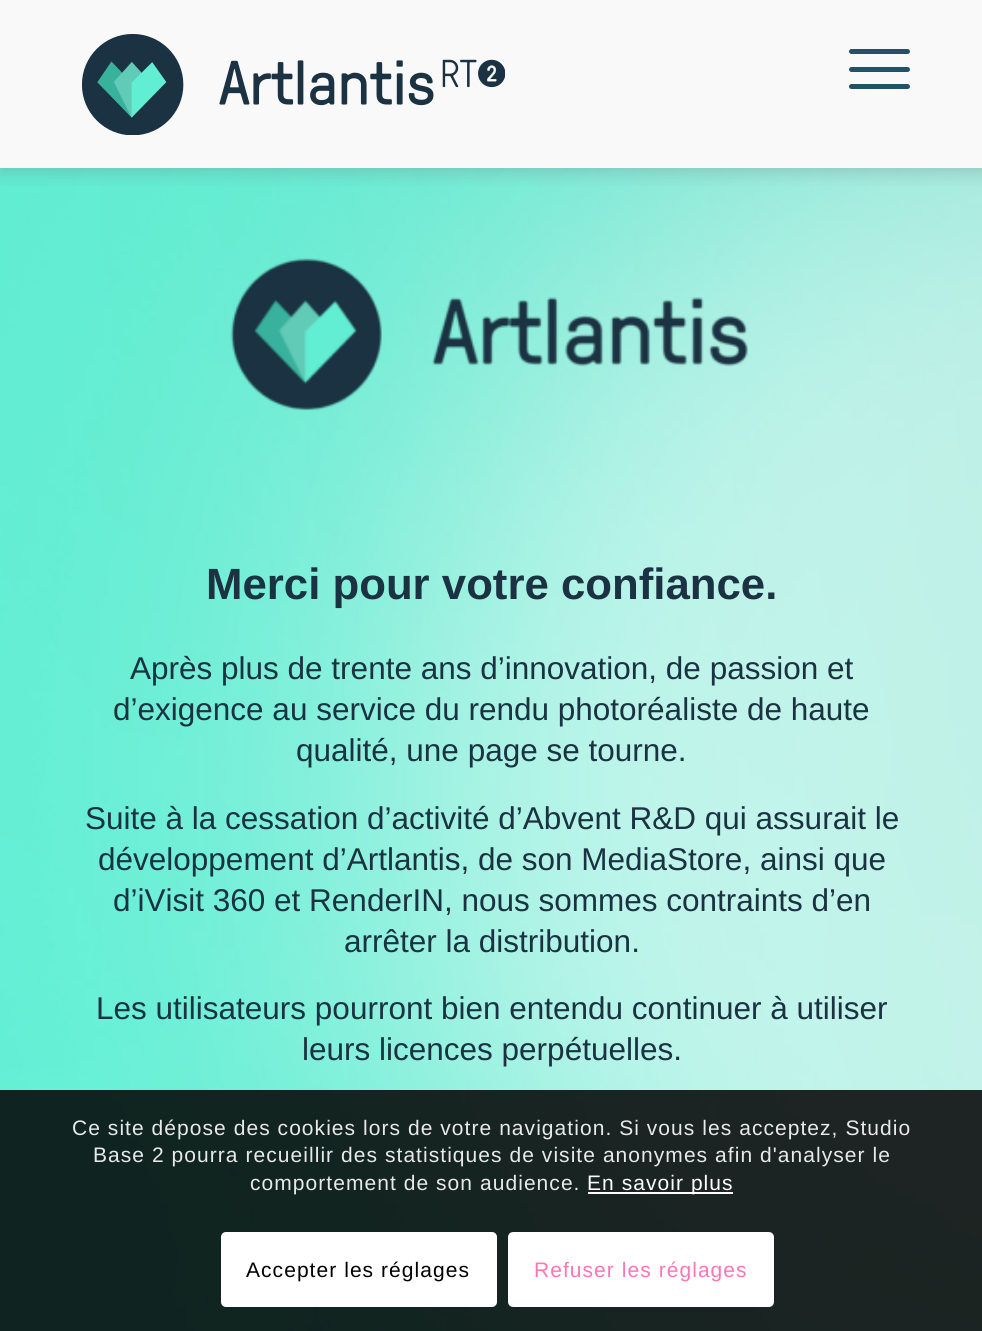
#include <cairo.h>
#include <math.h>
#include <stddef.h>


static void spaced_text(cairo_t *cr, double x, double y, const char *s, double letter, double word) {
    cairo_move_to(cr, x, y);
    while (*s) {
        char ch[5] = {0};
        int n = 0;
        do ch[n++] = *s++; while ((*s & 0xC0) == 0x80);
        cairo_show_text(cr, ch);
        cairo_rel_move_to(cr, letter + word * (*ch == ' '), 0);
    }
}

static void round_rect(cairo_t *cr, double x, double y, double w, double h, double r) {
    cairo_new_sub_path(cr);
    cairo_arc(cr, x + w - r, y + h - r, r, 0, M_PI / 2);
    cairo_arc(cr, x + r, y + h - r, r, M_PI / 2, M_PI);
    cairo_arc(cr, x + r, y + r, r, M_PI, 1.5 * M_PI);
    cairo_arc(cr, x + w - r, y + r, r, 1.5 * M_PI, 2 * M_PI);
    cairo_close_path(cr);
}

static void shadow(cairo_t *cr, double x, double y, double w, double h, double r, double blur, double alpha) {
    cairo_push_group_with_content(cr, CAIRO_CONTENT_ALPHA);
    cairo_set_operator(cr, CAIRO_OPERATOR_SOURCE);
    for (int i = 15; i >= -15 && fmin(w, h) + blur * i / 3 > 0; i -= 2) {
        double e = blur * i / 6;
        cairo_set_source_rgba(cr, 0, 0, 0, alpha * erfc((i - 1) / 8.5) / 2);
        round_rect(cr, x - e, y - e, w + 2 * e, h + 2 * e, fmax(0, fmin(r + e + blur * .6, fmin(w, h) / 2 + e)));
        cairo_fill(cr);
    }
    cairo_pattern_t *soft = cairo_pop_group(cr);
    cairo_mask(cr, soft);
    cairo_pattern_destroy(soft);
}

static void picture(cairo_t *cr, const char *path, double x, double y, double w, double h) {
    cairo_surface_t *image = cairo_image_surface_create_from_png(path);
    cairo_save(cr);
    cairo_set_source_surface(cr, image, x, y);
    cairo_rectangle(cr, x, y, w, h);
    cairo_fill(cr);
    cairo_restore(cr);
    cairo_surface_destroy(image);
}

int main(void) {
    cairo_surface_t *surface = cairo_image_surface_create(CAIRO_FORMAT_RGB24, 982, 1331);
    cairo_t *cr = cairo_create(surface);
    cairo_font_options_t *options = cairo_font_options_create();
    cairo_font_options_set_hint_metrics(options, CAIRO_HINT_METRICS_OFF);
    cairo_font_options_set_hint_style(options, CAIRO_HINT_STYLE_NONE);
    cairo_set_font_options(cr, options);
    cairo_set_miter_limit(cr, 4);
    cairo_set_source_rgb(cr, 1, 1, 1);
    cairo_paint(cr);
    cairo_set_source_rgb(cr, 0.973, 0.973, 0.973);
    cairo_rectangle(cr, 0, 0, 982, 168);
    cairo_fill(cr);
    picture(cr, "img2.png", 0, 168, 982, 1163);
    cairo_save(cr);
    cairo_rectangle(cr, 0, 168, 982, 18);
    cairo_clip(cr);
    cairo_set_source_rgb(cr, 0.439, 0.439, 0.439);
    shadow(cr, 0, 4, 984, 168, 0, 9, 0.3);
    cairo_restore(cr);
    picture(cr, "img1.png", 82, 34, 423, 101);
    cairo_set_source_rgb(cr, 0.129, 0.322, 0.4);
    round_rect(cr, 849, 67, 61, 5, 2.5);
    cairo_fill(cr);
    round_rect(cr, 849, 49, 61, 5, 2.5);
    cairo_fill(cr);
    round_rect(cr, 849, 84, 61, 5, 2.5);
    cairo_fill(cr);
    picture(cr, "img3.png", 230, 258, 519, 153);
    cairo_select_font_face(cr, "Liberation Sans", CAIRO_FONT_SLANT_NORMAL, CAIRO_FONT_WEIGHT_BOLD);
    cairo_set_font_size(cr, 43.75);
    cairo_set_source_rgb(cr, 0.102, 0.196, 0.255);
    cairo_move_to(cr, 206, 599);
    cairo_show_text(cr, "Merci pour votre confiance.");
    cairo_select_font_face(cr, "Liberation Sans", CAIRO_FONT_SLANT_NORMAL, CAIRO_FONT_WEIGHT_NORMAL);
    cairo_set_font_size(cr, 31.5);
    cairo_move_to(cr, 130, 679);
    cairo_show_text(cr, "Après plus de trente ans d’innovation, de passion et");
    cairo_move_to(cr, 113, 720);
    cairo_show_text(cr, "d’exigence au service du rendu photoréaliste de haute");
    cairo_move_to(cr, 296, 761);
    cairo_show_text(cr, "qualité, une page se tourne.");
    cairo_move_to(cr, 85, 829);
    cairo_show_text(cr, "Suite à la cessation d’activité d’Abvent R&D qui assurait le");
    cairo_move_to(cr, 98, 870);
    cairo_show_text(cr, "développement d’Artlantis, de son MediaStore, ainsi que");
    cairo_move_to(cr, 113, 911);
    cairo_show_text(cr, "d’iVisit 360 et RenderIN, nous sommes contraints d’en");
    cairo_move_to(cr, 344, 952);
    cairo_show_text(cr, "arrêter la distribution.");
    cairo_move_to(cr, 96, 1019);
    cairo_show_text(cr, "Les utilisateurs pourront bien entendu continuer à utiliser");
    cairo_move_to(cr, 302, 1060);
    cairo_show_text(cr, "leurs licences perpétuelles.");
    cairo_set_source_rgba(cr, 0, 0, 0, 0.85);
    cairo_rectangle(cr, 0, 1090, 982, 241);
    cairo_fill(cr);
    cairo_set_font_size(cr, 21);
    cairo_set_source_rgb(cr, 0.91, 0.914, 0.914);
    spaced_text(cr, 72, 1135, "Ce site dépose des cookies lors de votre navigation. Si vous les acceptez, Studio", 1.05, 0);
    spaced_text(cr, 93, 1162, "Base 2 pourra recueillir des statistiques de visite anonymes afin d'analyser le", 1.05, 0);
    spaced_text(cr, 250, 1190, "comportement de son audience.", 1.05, 0);
    cairo_set_source_rgb(cr, 1, 1, 1);
    cairo_rectangle(cr, 588, 1192, 145, 2);
    cairo_fill(cr);
    spaced_text(cr, 587, 1190, "En savoir plus", 1.05, 0);
    round_rect(cr, 221, 1232, 276, 75, 5);
    cairo_fill(cr);
    cairo_set_source_rgb(cr, 0, 0, 0);
    spaced_text(cr, 246, 1277, "Accepter les réglages", 1.05, 0);
    cairo_set_source_rgb(cr, 1, 1, 1);
    round_rect(cr, 510, 1234, 262, 71, 3);
    cairo_fill_preserve(cr);
    cairo_set_line_width(cr, 4);
    cairo_stroke(cr);
    cairo_set_source_rgb(cr, 1, 0.459, 0.71);
    spaced_text(cr, 534, 1277, "Refuser les réglages", 1.05, 0);
    cairo_surface_write_to_png(surface, "page.png");
    cairo_font_options_destroy(options);
    cairo_destroy(cr);
    cairo_surface_destroy(surface);
    return 0;
}
